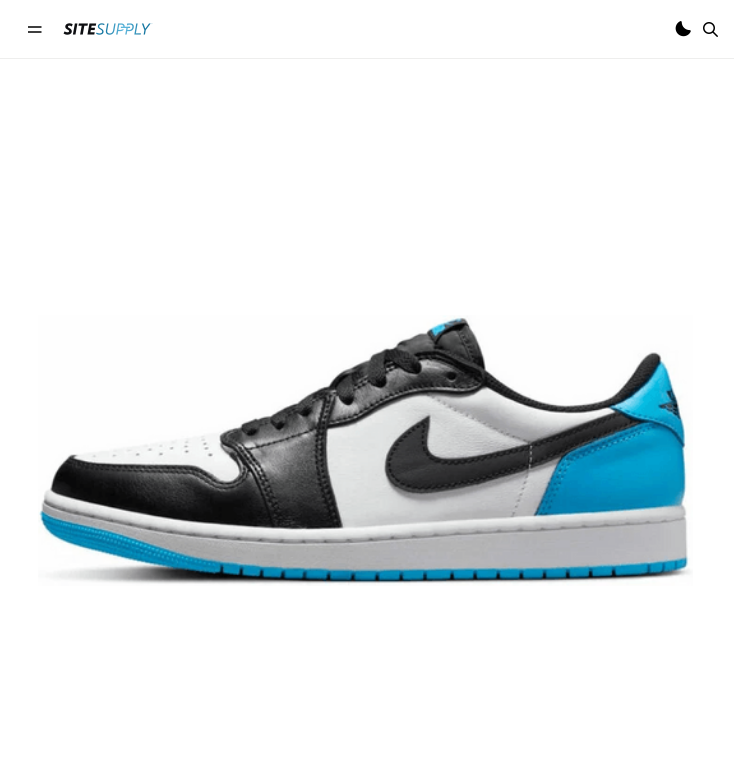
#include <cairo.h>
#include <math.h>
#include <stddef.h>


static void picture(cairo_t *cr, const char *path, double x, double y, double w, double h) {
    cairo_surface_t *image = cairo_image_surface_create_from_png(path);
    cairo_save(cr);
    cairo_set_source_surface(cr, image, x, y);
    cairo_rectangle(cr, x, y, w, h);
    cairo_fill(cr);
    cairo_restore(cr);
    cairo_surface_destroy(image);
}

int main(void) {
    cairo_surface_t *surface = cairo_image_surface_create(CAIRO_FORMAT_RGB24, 734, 770);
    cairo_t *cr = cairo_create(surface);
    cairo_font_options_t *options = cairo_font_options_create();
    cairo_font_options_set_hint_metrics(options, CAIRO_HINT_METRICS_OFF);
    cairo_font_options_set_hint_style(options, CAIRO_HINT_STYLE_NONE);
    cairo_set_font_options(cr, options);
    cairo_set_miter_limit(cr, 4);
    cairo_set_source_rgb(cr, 1, 1, 1);
    cairo_paint(cr);
    cairo_set_source_rgb(cr, 0.933, 0.933, 0.929);
    cairo_rectangle(cr, 0, 58, 734, 1);
    cairo_fill(cr);
    cairo_new_path(cr);
    cairo_move_to(cr, 28, 27);
    cairo_line_to(cr, 41.5, 27);
    cairo_move_to(cr, 28, 32);
    cairo_line_to(cr, 41.5, 32);
    cairo_set_source_rgb(cr, 0, 0, 0);
    cairo_set_line_width(cr, 1.5);
    cairo_stroke(cr);
    picture(cr, "img1.png", 63, 23, 90, 12);
    picture(cr, "img2.png", 675, 21, 16, 16);
    picture(cr, "img3.png", 703, 22, 15, 15);
    picture(cr, "img4.png", 38, 315, 655, 271);
    cairo_surface_write_to_png(surface, "page.png");
    cairo_font_options_destroy(options);
    cairo_destroy(cr);
    cairo_surface_destroy(surface);
    return 0;
}
